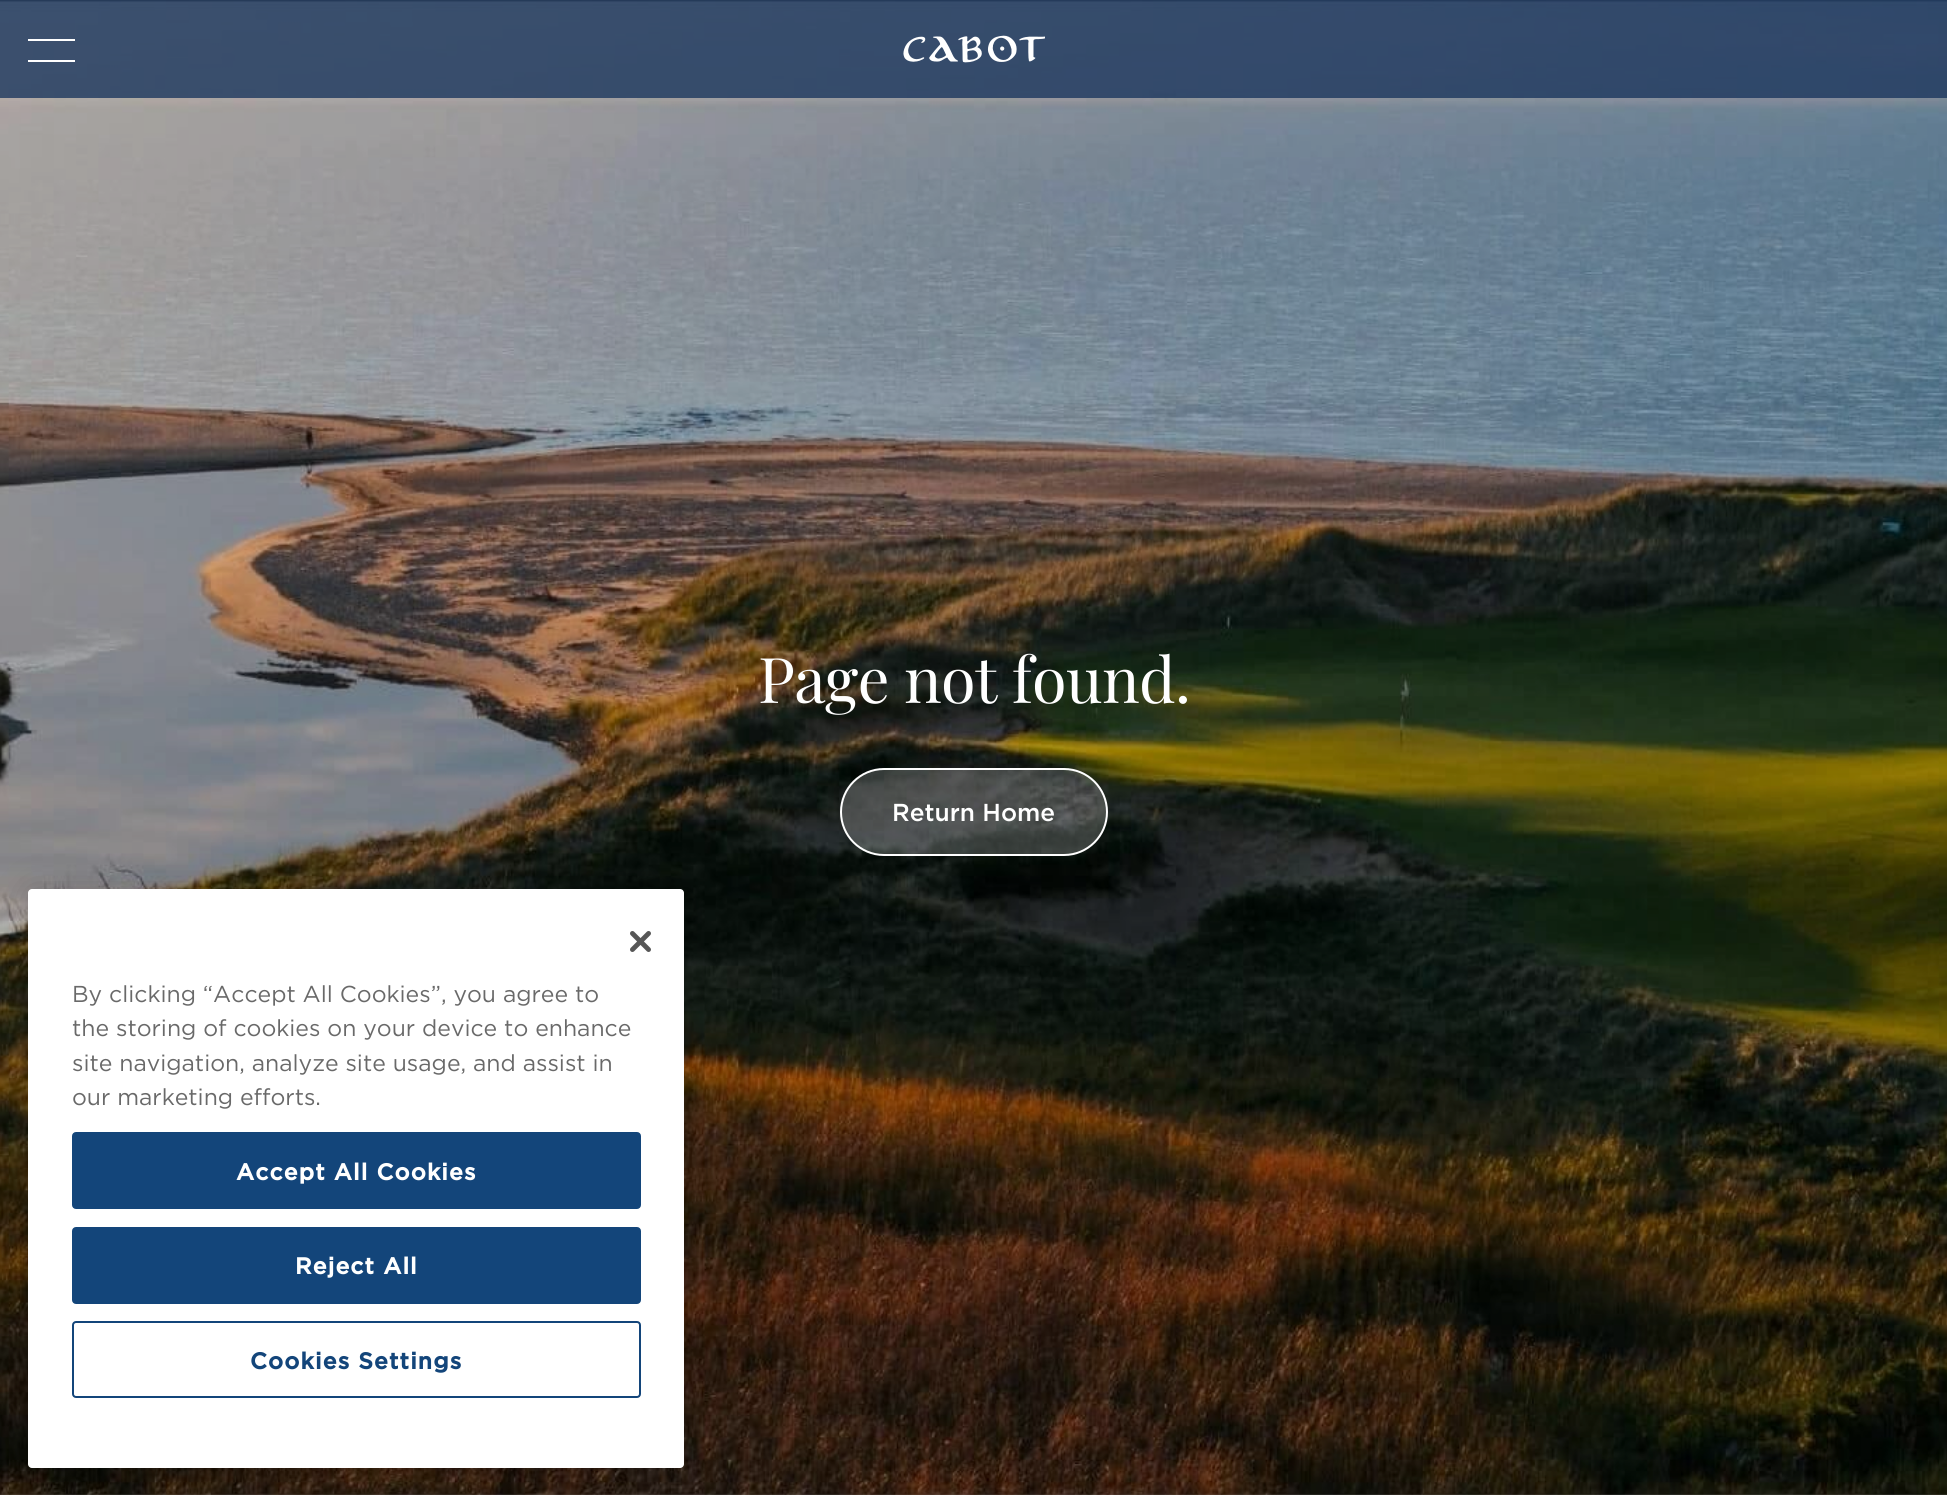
#include <cairo.h>
#include <math.h>
#include <stddef.h>


static void spaced_text(cairo_t *cr, double x, double y, const char *s, double letter, double word) {
    cairo_move_to(cr, x, y);
    while (*s) {
        char ch[5] = {0};
        int n = 0;
        do ch[n++] = *s++; while ((*s & 0xC0) == 0x80);
        cairo_show_text(cr, ch);
        cairo_rel_move_to(cr, letter + word * (*ch == ' '), 0);
    }
}

static void round_rect(cairo_t *cr, double x, double y, double w, double h, double r) {
    cairo_new_sub_path(cr);
    cairo_arc(cr, x + w - r, y + h - r, r, 0, M_PI / 2);
    cairo_arc(cr, x + r, y + h - r, r, M_PI / 2, M_PI);
    cairo_arc(cr, x + r, y + r, r, M_PI, 1.5 * M_PI);
    cairo_arc(cr, x + w - r, y + r, r, 1.5 * M_PI, 2 * M_PI);
    cairo_close_path(cr);
}

static void shadow(cairo_t *cr, double x, double y, double w, double h, double r, double blur, double alpha) {
    cairo_push_group_with_content(cr, CAIRO_CONTENT_ALPHA);
    cairo_set_operator(cr, CAIRO_OPERATOR_SOURCE);
    for (int i = 15; i >= -15 && fmin(w, h) + blur * i / 3 > 0; i -= 2) {
        double e = blur * i / 6;
        cairo_set_source_rgba(cr, 0, 0, 0, alpha * erfc((i - 1) / 8.5) / 2);
        round_rect(cr, x - e, y - e, w + 2 * e, h + 2 * e, fmax(0, fmin(r + e + blur * .6, fmin(w, h) / 2 + e)));
        cairo_fill(cr);
    }
    cairo_pattern_t *soft = cairo_pop_group(cr);
    cairo_mask(cr, soft);
    cairo_pattern_destroy(soft);
}

static void picture(cairo_t *cr, const char *path, double x, double y, double w, double h) {
    cairo_surface_t *image = cairo_image_surface_create_from_png(path);
    cairo_save(cr);
    cairo_set_source_surface(cr, image, x, y);
    cairo_rectangle(cr, x, y, w, h);
    cairo_fill(cr);
    cairo_restore(cr);
    cairo_surface_destroy(image);
}

int main(void) {
    cairo_surface_t *surface = cairo_image_surface_create(CAIRO_FORMAT_RGB24, 1947, 1495);
    cairo_t *cr = cairo_create(surface);
    cairo_font_options_t *options = cairo_font_options_create();
    cairo_font_options_set_hint_metrics(options, CAIRO_HINT_METRICS_OFF);
    cairo_font_options_set_hint_style(options, CAIRO_HINT_STYLE_NONE);
    cairo_set_font_options(cr, options);
    cairo_set_miter_limit(cr, 4);
    cairo_set_source_rgb(cr, 1, 1, 1);
    cairo_paint(cr);
    picture(cr, "img2.png", 0, 0, 1947, 1495);
    cairo_set_source_rgba(cr, 0.078, 0.192, 0.353, 0.75);
    cairo_rectangle(cr, 0, 0, 1947, 98);
    cairo_fill(cr);
    cairo_set_source_rgb(cr, 1, 1, 1);
    cairo_rectangle(cr, 28, 39, 47, 2);
    cairo_fill(cr);
    cairo_rectangle(cr, 28, 60, 47, 2);
    cairo_fill(cr);
    picture(cr, "img1.png", 903, 35, 142, 28);
    cairo_select_font_face(cr, "Playfair Display", CAIRO_FONT_SLANT_NORMAL, CAIRO_FONT_WEIGHT_NORMAL);
    cairo_set_font_size(cr, 63);
    spaced_text(cr, 758, 703, "Page not found.", -0.6, 0);
    cairo_set_source_rgba(cr, 1, 1, 1, 0.2);
    round_rect(cr, 841, 769, 266, 86, 43);
    cairo_fill_preserve(cr);
    cairo_set_source_rgb(cr, 1, 1, 1);
    cairo_stroke(cr);
    cairo_select_font_face(cr, "Gotham Medium", CAIRO_FONT_SLANT_NORMAL, CAIRO_FONT_WEIGHT_NORMAL);
    cairo_set_font_size(cr, 24.5);
    cairo_move_to(cr, 892, 821);
    cairo_show_text(cr, "Return Home");
    cairo_set_source_rgb(cr, 0, 0, 0);
    shadow(cr, 28, 889, 656, 579, 4, 16, 0.2);
    cairo_set_source_rgb(cr, 1, 1, 1);
    round_rect(cr, 28, 889, 656, 579, 4);
    cairo_fill(cr);
    picture(cr, "img3.png", 630, 931, 21, 21);
    cairo_select_font_face(cr, "Gotham", CAIRO_FONT_SLANT_NORMAL, CAIRO_FONT_WEIGHT_NORMAL);
    cairo_set_font_size(cr, 23);
    cairo_set_source_rgb(cr, 0.412, 0.412, 0.412);
    cairo_move_to(cr, 72, 1002);
    cairo_show_text(cr, "By clicking “Accept All Cookies”, you agree to");
    cairo_move_to(cr, 72, 1036);
    cairo_show_text(cr, "the storing of cookies on your device to enhance");
    cairo_move_to(cr, 72, 1071);
    cairo_show_text(cr, "site navigation, analyze site usage, and assist in");
    cairo_move_to(cr, 72, 1105);
    cairo_show_text(cr, "our marketing efforts.");
    cairo_set_source_rgb(cr, 0.078, 0.271, 0.478);
    round_rect(cr, 73, 1133, 567, 75, 3);
    cairo_fill_preserve(cr);
    cairo_stroke(cr);
    cairo_select_font_face(cr, "Gotham", CAIRO_FONT_SLANT_NORMAL, CAIRO_FONT_WEIGHT_BOLD);
    cairo_set_source_rgb(cr, 1, 1, 1);
    spaced_text(cr, 236, 1180, "Accept All Cookies", 1.1, 0);
    cairo_set_source_rgb(cr, 0.078, 0.271, 0.478);
    round_rect(cr, 73, 1228, 567, 75, 3);
    cairo_fill_preserve(cr);
    cairo_stroke(cr);
    cairo_set_source_rgb(cr, 1, 1, 1);
    spaced_text(cr, 295, 1274, "Reject All", 1.1, 0);
    round_rect(cr, 73, 1322, 567, 75, 3);
    cairo_set_source_rgb(cr, 0.078, 0.271, 0.478);
    cairo_stroke(cr);
    spaced_text(cr, 250, 1369, "Cookies Settings", 1.1, 0);
    cairo_surface_write_to_png(surface, "page.png");
    cairo_font_options_destroy(options);
    cairo_destroy(cr);
    cairo_surface_destroy(surface);
    return 0;
}
